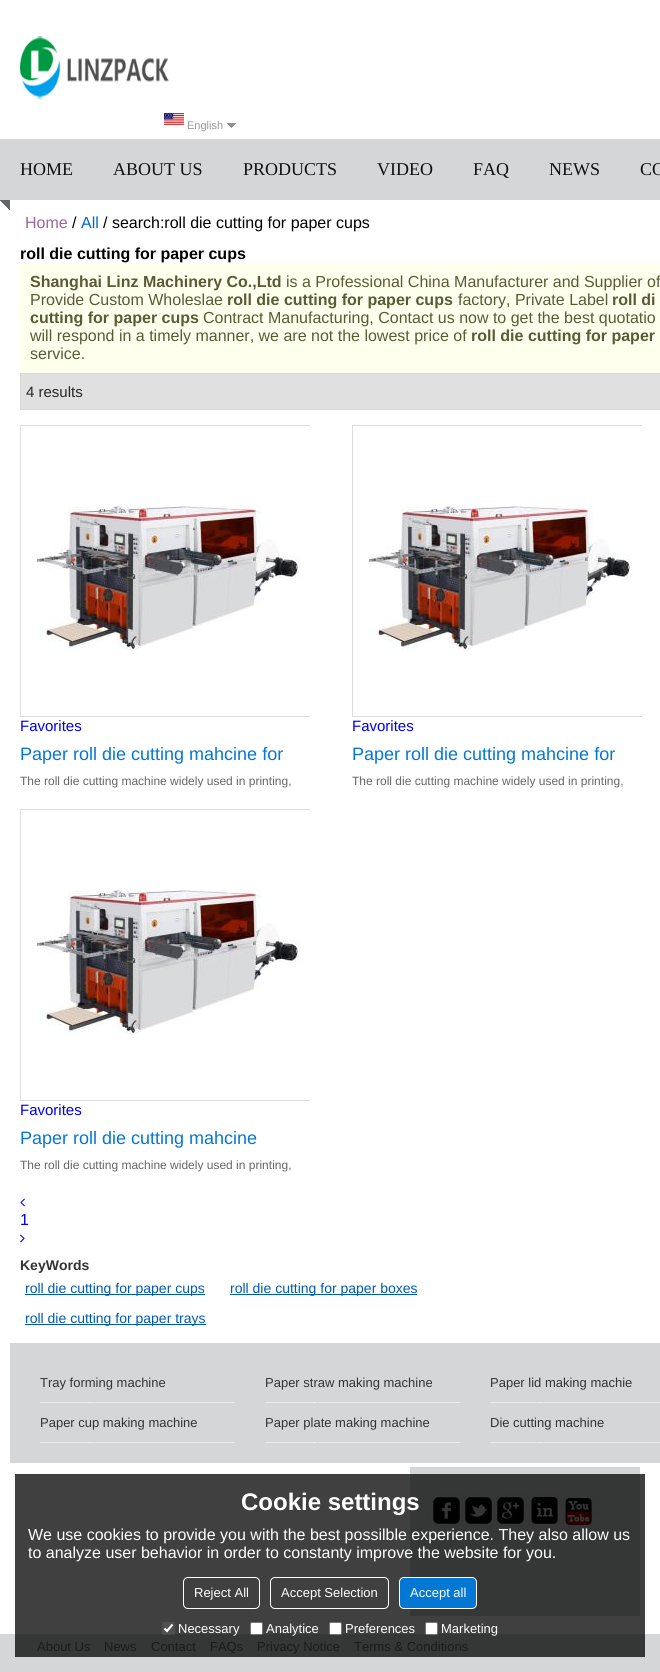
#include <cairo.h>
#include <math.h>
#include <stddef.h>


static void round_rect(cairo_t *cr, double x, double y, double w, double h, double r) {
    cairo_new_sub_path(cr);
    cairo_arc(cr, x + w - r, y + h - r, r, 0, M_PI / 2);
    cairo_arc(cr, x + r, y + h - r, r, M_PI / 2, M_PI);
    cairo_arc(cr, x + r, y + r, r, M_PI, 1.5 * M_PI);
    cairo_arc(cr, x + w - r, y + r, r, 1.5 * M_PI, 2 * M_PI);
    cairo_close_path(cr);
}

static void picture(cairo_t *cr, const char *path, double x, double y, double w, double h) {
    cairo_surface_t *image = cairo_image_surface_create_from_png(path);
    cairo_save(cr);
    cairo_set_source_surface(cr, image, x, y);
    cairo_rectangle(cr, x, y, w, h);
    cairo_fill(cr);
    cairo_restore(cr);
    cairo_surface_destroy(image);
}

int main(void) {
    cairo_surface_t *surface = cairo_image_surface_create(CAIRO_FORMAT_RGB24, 660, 1672);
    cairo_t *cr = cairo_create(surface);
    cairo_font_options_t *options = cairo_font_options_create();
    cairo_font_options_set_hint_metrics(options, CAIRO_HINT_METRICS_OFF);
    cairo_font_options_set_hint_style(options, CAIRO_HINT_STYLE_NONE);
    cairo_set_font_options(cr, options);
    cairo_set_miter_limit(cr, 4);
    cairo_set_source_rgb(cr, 1, 1, 1);
    cairo_paint(cr);
    cairo_set_source_rgb(cr, 0.251, 0.251, 0.251);
    cairo_rectangle(cr, 15, 1474, 630, 160);
    cairo_fill(cr);
    picture(cr, "img1.png", 20, 36, 149, 63);
    picture(cr, "img2.png", 164, 113, 20, 12);
    cairo_select_font_face(cr, "Liberation Sans", CAIRO_FONT_SLANT_NORMAL, CAIRO_FONT_WEIGHT_NORMAL);
    cairo_set_font_size(cr, 11);
    cairo_set_source_rgb(cr, 0.6, 0.6, 0.6);
    cairo_move_to(cr, 187, 129);
    cairo_show_text(cr, "English");
    picture(cr, "img3.png", 227, 123, 9, 5);
    cairo_set_source_rgb(cr, 0.831, 0.839, 0.843);
    cairo_rectangle(cr, 0, 139, 660, 61);
    cairo_fill(cr);
    cairo_select_font_face(cr, "Liberation Serif", CAIRO_FONT_SLANT_NORMAL, CAIRO_FONT_WEIGHT_NORMAL);
    cairo_set_font_size(cr, 18);
    cairo_set_source_rgb(cr, 0.067, 0.067, 0.067);
    cairo_move_to(cr, 20, 175);
    cairo_show_text(cr, "HOME");
    cairo_move_to(cr, 113, 175);
    cairo_show_text(cr, "ABOUT US");
    cairo_move_to(cr, 243, 175);
    cairo_show_text(cr, "PRODUCTS");
    cairo_move_to(cr, 377, 175);
    cairo_show_text(cr, "VIDEO");
    cairo_move_to(cr, 473, 175);
    cairo_show_text(cr, "FAQ");
    cairo_move_to(cr, 549, 175);
    cairo_show_text(cr, "NEWS");
    cairo_move_to(cr, 640, 175);
    cairo_show_text(cr, "CO");
    picture(cr, "img4.png", 0, 200, 10, 10);
    cairo_select_font_face(cr, "Liberation Sans", CAIRO_FONT_SLANT_NORMAL, CAIRO_FONT_WEIGHT_NORMAL);
    cairo_set_font_size(cr, 16);
    cairo_set_source_rgb(cr, 0.6, 0.4, 0.6);
    cairo_move_to(cr, 25, 228);
    cairo_show_text(cr, "Home");
    cairo_set_source_rgb(cr, 0, 0, 0);
    cairo_move_to(cr, 72, 228);
    cairo_show_text(cr, "/");
    cairo_set_source_rgb(cr, 0, 0.4, 0.8);
    cairo_move_to(cr, 81, 228);
    cairo_show_text(cr, "All");
    cairo_set_source_rgb(cr, 0, 0, 0);
    cairo_move_to(cr, 103, 228);
    cairo_show_text(cr, "/ search:roll die cutting for paper cups");
    cairo_select_font_face(cr, "Liberation Sans", CAIRO_FONT_SLANT_NORMAL, CAIRO_FONT_WEIGHT_BOLD);
    cairo_move_to(cr, 20, 259);
    cairo_show_text(cr, "roll die cutting for paper cups");
    cairo_set_source_rgb(cr, 1, 1, 0.933);
    cairo_new_path(cr);
    cairo_move_to(cr, 24, 263);
    cairo_line_to(cr, 660, 263);
    cairo_line_to(cr, 660, 373);
    cairo_line_to(cr, 24, 373);
    cairo_curve_to(cr, 22, 373, 20, 371, 20, 369);
    cairo_line_to(cr, 20, 267);
    cairo_curve_to(cr, 20, 265, 22, 263, 24, 263);
    cairo_close_path(cr);
    cairo_fill(cr);
    cairo_set_source_rgb(cr, 0.353, 0.353, 0.216);
    cairo_move_to(cr, 30, 287);
    cairo_show_text(cr, "Shanghai Linz Machinery Co.,Ltd");
    cairo_select_font_face(cr, "Liberation Sans", CAIRO_FONT_SLANT_NORMAL, CAIRO_FONT_WEIGHT_NORMAL);
    cairo_move_to(cr, 286, 287);
    cairo_show_text(cr, "is a Professional China Manufacturer and Supplier of");
    cairo_move_to(cr, 30, 305);
    cairo_show_text(cr, "Provide Custom Wholeslae");
    cairo_select_font_face(cr, "Liberation Sans", CAIRO_FONT_SLANT_NORMAL, CAIRO_FONT_WEIGHT_BOLD);
    cairo_move_to(cr, 227, 305);
    cairo_show_text(cr, "roll die cutting for paper cups");
    cairo_select_font_face(cr, "Liberation Sans", CAIRO_FONT_SLANT_NORMAL, CAIRO_FONT_WEIGHT_NORMAL);
    cairo_move_to(cr, 458, 305);
    cairo_show_text(cr, "factory, Private Label");
    cairo_select_font_face(cr, "Liberation Sans", CAIRO_FONT_SLANT_NORMAL, CAIRO_FONT_WEIGHT_BOLD);
    cairo_move_to(cr, 612, 305);
    cairo_show_text(cr, "roll di");
    cairo_move_to(cr, 30, 323);
    cairo_show_text(cr, "cutting for paper cups");
    cairo_select_font_face(cr, "Liberation Sans", CAIRO_FONT_SLANT_NORMAL, CAIRO_FONT_WEIGHT_NORMAL);
    cairo_move_to(cr, 203, 323);
    cairo_show_text(cr, "Contract Manufacturing, Contact us now to get the best quotatio");
    cairo_move_to(cr, 30, 341);
    cairo_show_text(cr, "will respond in a timely manner, we are not the lowest price of");
    cairo_select_font_face(cr, "Liberation Sans", CAIRO_FONT_SLANT_NORMAL, CAIRO_FONT_WEIGHT_BOLD);
    cairo_move_to(cr, 471, 341);
    cairo_show_text(cr, "roll die cutting for paper");
    cairo_select_font_face(cr, "Liberation Sans", CAIRO_FONT_SLANT_NORMAL, CAIRO_FONT_WEIGHT_NORMAL);
    cairo_move_to(cr, 30, 359);
    cairo_show_text(cr, "service.");
    cairo_set_source_rgb(cr, 0.878, 0.878, 0.878);
    cairo_rectangle(cr, 20.5, 373.5, 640, 36);
    cairo_fill_preserve(cr);
    cairo_set_source_rgb(cr, 0.847, 0.847, 0.847);
    cairo_set_line_width(cr, 1);
    cairo_stroke(cr);
    cairo_set_font_size(cr, 15);
    cairo_set_source_rgb(cr, 0.149, 0.153, 0.153);
    cairo_move_to(cr, 26, 397);
    cairo_show_text(cr, "4 results");
    cairo_save(cr);
    cairo_rectangle(cr, 20, 425, 290, 292);
    cairo_clip(cr);
    cairo_rectangle(cr, 20.5, 425.5, 291, 291);
    cairo_set_source_rgb(cr, 0.867, 0.867, 0.867);
    cairo_stroke(cr);
    cairo_restore(cr);
    picture(cr, "img5.png", 36, 506, 265, 144);
    cairo_set_source_rgb(cr, 0, 0, 0.933);
    cairo_move_to(cr, 20, 731);
    cairo_show_text(cr, "Favorites");
    cairo_set_font_size(cr, 18);
    cairo_set_source_rgb(cr, 0.008, 0.471, 0.831);
    cairo_move_to(cr, 20, 760);
    cairo_show_text(cr, "Paper roll die cutting mahcine for");
    cairo_set_font_size(cr, 12);
    cairo_set_source_rgb(cr, 0.4, 0.4, 0.4);
    cairo_move_to(cr, 20, 785);
    cairo_show_text(cr, "The roll die cutting machine widely used in printing,");
    cairo_save(cr);
    cairo_rectangle(cr, 352, 425, 290, 292);
    cairo_clip(cr);
    cairo_rectangle(cr, 352.5, 425.5, 291, 291);
    cairo_set_source_rgb(cr, 0.867, 0.867, 0.867);
    cairo_stroke(cr);
    cairo_restore(cr);
    picture(cr, "img5.png", 368, 506, 265, 144);
    cairo_set_font_size(cr, 15);
    cairo_set_source_rgb(cr, 0, 0, 0.933);
    cairo_move_to(cr, 352, 731);
    cairo_show_text(cr, "Favorites");
    cairo_set_font_size(cr, 18);
    cairo_set_source_rgb(cr, 0.008, 0.471, 0.831);
    cairo_move_to(cr, 352, 760);
    cairo_show_text(cr, "Paper roll die cutting mahcine for");
    cairo_set_font_size(cr, 12);
    cairo_set_source_rgb(cr, 0.4, 0.4, 0.4);
    cairo_move_to(cr, 352, 785);
    cairo_show_text(cr, "The roll die cutting machine widely used in printing,");
    cairo_save(cr);
    cairo_rectangle(cr, 20, 809, 290, 292);
    cairo_clip(cr);
    cairo_rectangle(cr, 20.5, 809.5, 291, 291);
    cairo_set_source_rgb(cr, 0.867, 0.867, 0.867);
    cairo_stroke(cr);
    cairo_restore(cr);
    picture(cr, "img5.png", 36, 890, 265, 144);
    cairo_set_font_size(cr, 15);
    cairo_set_source_rgb(cr, 0, 0, 0.933);
    cairo_move_to(cr, 20, 1115);
    cairo_show_text(cr, "Favorites");
    cairo_set_font_size(cr, 18);
    cairo_set_source_rgb(cr, 0.008, 0.471, 0.831);
    cairo_move_to(cr, 20, 1144);
    cairo_show_text(cr, "Paper roll die cutting mahcine");
    cairo_set_font_size(cr, 12);
    cairo_set_source_rgb(cr, 0.4, 0.4, 0.4);
    cairo_move_to(cr, 20, 1169);
    cairo_show_text(cr, "The roll die cutting machine widely used in printing,");
    picture(cr, "img6.png", 20, 1198, 5, 9);
    cairo_set_font_size(cr, 16);
    cairo_set_source_rgb(cr, 0, 0, 0.933);
    cairo_move_to(cr, 20, 1225);
    cairo_show_text(cr, "1");
    picture(cr, "img7.png", 20, 1234, 5, 9);
    cairo_select_font_face(cr, "Liberation Sans", CAIRO_FONT_SLANT_NORMAL, CAIRO_FONT_WEIGHT_BOLD);
    cairo_set_font_size(cr, 14);
    cairo_set_source_rgb(cr, 0.2, 0.2, 0.2);
    cairo_move_to(cr, 20, 1270);
    cairo_show_text(cr, "KeyWords");
    cairo_set_source_rgb(cr, 0, 0.357, 0.69);
    cairo_rectangle(cr, 25, 1294, 180, 1);
    cairo_fill(cr);
    cairo_select_font_face(cr, "Liberation Sans", CAIRO_FONT_SLANT_NORMAL, CAIRO_FONT_WEIGHT_NORMAL);
    cairo_move_to(cr, 25, 1293);
    cairo_show_text(cr, "roll die cutting for paper cups");
    cairo_rectangle(cr, 230, 1294, 187, 1);
    cairo_fill(cr);
    cairo_move_to(cr, 230, 1293);
    cairo_show_text(cr, "roll die cutting for paper boxes");
    cairo_rectangle(cr, 25, 1324, 181, 1);
    cairo_fill(cr);
    cairo_move_to(cr, 25, 1323);
    cairo_show_text(cr, "roll die cutting for paper trays");
    cairo_set_source_rgb(cr, 0.835, 0.839, 0.847);
    cairo_rectangle(cr, 10, 1343, 650, 120);
    cairo_fill(cr);
    picture(cr, "img8.png", 40, 1402, 195, 1);
    cairo_set_font_size(cr, 13);
    cairo_set_source_rgb(cr, 0.2, 0.2, 0.2);
    cairo_move_to(cr, 40, 1387);
    cairo_show_text(cr, "Tray forming machine");
    picture(cr, "img8.png", 265, 1402, 195, 1);
    cairo_move_to(cr, 265, 1387);
    cairo_show_text(cr, "Paper straw making machine");
    picture(cr, "img9.png", 490, 1402, 170, 1);
    cairo_move_to(cr, 490, 1387);
    cairo_show_text(cr, "Paper lid making machie");
    picture(cr, "img8.png", 40, 1442, 195, 1);
    cairo_move_to(cr, 40, 1427);
    cairo_show_text(cr, "Paper cup making machine");
    picture(cr, "img8.png", 265, 1442, 195, 1);
    cairo_move_to(cr, 265, 1427);
    cairo_show_text(cr, "Paper plate making machine");
    picture(cr, "img9.png", 490, 1442, 170, 1);
    cairo_move_to(cr, 490, 1427);
    cairo_show_text(cr, "Die cutting machine");
    picture(cr, "img10.png", 410, 1467, 230, 149);
    cairo_set_source_rgb(cr, 0.835, 0.839, 0.847);
    cairo_rectangle(cr, 0, 1634, 660, 38);
    cairo_fill(cr);
    cairo_set_source_rgb(cr, 0.208, 0.212, 0.212);
    cairo_rectangle(cr, 15, 1634, 630, 23);
    cairo_fill(cr);
    cairo_set_source_rgb(cr, 0.102, 0.102, 0.102);
    cairo_move_to(cr, 37, 1651);
    cairo_show_text(cr, "About Us");
    cairo_move_to(cr, 104, 1651);
    cairo_show_text(cr, "News");
    cairo_move_to(cr, 151, 1651);
    cairo_show_text(cr, "Contact");
    cairo_move_to(cr, 210, 1651);
    cairo_show_text(cr, "FAQs");
    cairo_move_to(cr, 257, 1651);
    cairo_show_text(cr, "Privacy Notice");
    cairo_move_to(cr, 354, 1651);
    cairo_show_text(cr, "Terms & Conditions");
    cairo_select_font_face(cr, "Liberation Sans", CAIRO_FONT_SLANT_NORMAL, CAIRO_FONT_WEIGHT_BOLD);
    cairo_set_font_size(cr, 24);
    cairo_set_source_rgb(cr, 1, 1, 1);
    cairo_move_to(cr, 241, 1510);
    cairo_show_text(cr, "Cookie settings");
    cairo_select_font_face(cr, "Liberation Sans", CAIRO_FONT_SLANT_NORMAL, CAIRO_FONT_WEIGHT_NORMAL);
    cairo_set_font_size(cr, 16);
    cairo_move_to(cr, 28, 1540);
    cairo_show_text(cr, "We use cookies to provide you with the best possilble experience. They also allow us");
    cairo_move_to(cr, 28, 1558);
    cairo_show_text(cr, "to analyze user behavior in order to constanty improve the website for you.");
    round_rect(cr, 183.5, 1577.5, 76, 31, 4.5);
    cairo_stroke(cr);
    cairo_set_font_size(cr, 13);
    cairo_move_to(cr, 194, 1597);
    cairo_show_text(cr, "Reject All");
    round_rect(cr, 270.5, 1577.5, 118, 31, 4.5);
    cairo_stroke(cr);
    cairo_move_to(cr, 281, 1597);
    cairo_show_text(cr, "Accept Selection");
    cairo_set_source_rgb(cr, 0.008, 0.471, 0.831);
    round_rect(cr, 399.5, 1577.5, 77, 31, 4.5);
    cairo_fill_preserve(cr);
    cairo_set_source_rgb(cr, 1, 1, 1);
    cairo_stroke(cr);
    cairo_move_to(cr, 410, 1597);
    cairo_show_text(cr, "Accept all");
    cairo_set_source_rgba(cr, 0.463, 0.463, 0.463, 0.3);
    round_rect(cr, 162, 1622, 13, 13, 2);
    cairo_fill(cr);
    cairo_new_path(cr);
    cairo_move_to(cr, 164.5, 1628.5);
    cairo_line_to(cr, 167, 1631);
    cairo_line_to(cr, 172.5, 1624.5);
    cairo_set_source_rgb(cr, 1, 1, 1);
    cairo_set_line_width(cr, 2.1);
    cairo_stroke(cr);
    cairo_move_to(cr, 178, 1633);
    cairo_show_text(cr, "Necessary");
    round_rect(cr, 250.5, 1622.5, 12, 12, 1.5);
    cairo_fill_preserve(cr);
    cairo_set_source_rgb(cr, 0.463, 0.463, 0.463);
    cairo_set_line_width(cr, 1);
    cairo_stroke(cr);
    cairo_set_source_rgb(cr, 1, 1, 1);
    cairo_move_to(cr, 266, 1633);
    cairo_show_text(cr, "Analytice");
    round_rect(cr, 329.5, 1622.5, 12, 12, 1.5);
    cairo_fill_preserve(cr);
    cairo_set_source_rgb(cr, 0.463, 0.463, 0.463);
    cairo_stroke(cr);
    cairo_set_source_rgb(cr, 1, 1, 1);
    cairo_move_to(cr, 345, 1633);
    cairo_show_text(cr, "Preferences");
    round_rect(cr, 425.5, 1622.5, 12, 12, 1.5);
    cairo_fill_preserve(cr);
    cairo_set_source_rgb(cr, 0.463, 0.463, 0.463);
    cairo_stroke(cr);
    cairo_set_source_rgb(cr, 1, 1, 1);
    cairo_move_to(cr, 441, 1633);
    cairo_show_text(cr, "Marketing");
    cairo_surface_write_to_png(surface, "page.png");
    cairo_font_options_destroy(options);
    cairo_destroy(cr);
    cairo_surface_destroy(surface);
    return 0;
}
